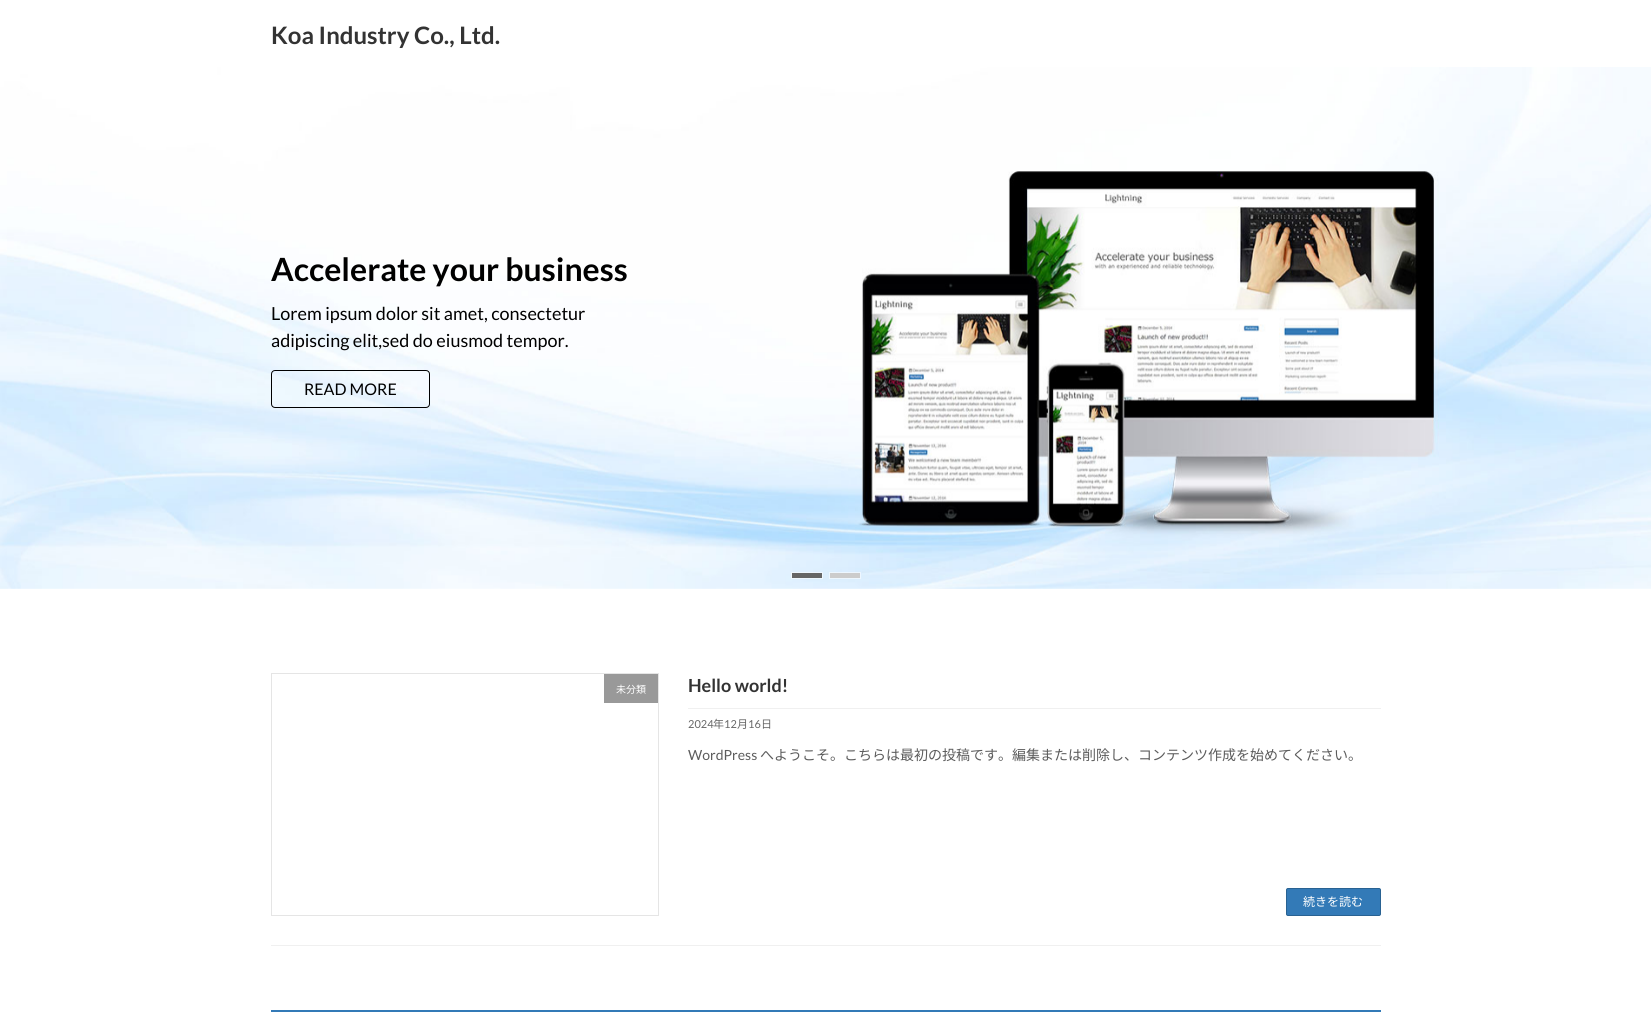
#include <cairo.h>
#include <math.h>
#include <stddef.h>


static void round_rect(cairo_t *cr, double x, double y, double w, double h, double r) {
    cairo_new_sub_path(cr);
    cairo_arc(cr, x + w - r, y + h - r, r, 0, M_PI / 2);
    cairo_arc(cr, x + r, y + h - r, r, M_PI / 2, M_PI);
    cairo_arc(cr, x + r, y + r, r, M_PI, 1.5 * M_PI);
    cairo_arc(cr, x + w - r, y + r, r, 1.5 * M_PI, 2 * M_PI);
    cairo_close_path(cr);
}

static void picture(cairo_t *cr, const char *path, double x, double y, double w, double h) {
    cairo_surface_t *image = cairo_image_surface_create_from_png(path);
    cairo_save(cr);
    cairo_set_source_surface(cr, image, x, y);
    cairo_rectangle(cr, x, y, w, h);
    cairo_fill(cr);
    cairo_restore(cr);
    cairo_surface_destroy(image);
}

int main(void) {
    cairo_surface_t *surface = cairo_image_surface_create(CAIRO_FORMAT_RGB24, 1651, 1031);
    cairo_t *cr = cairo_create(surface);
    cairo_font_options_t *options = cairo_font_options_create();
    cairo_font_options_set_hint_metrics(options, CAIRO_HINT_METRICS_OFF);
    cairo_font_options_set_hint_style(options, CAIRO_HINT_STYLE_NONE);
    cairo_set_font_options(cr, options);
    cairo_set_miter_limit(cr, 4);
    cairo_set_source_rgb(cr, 1, 1, 1);
    cairo_paint(cr);
    cairo_select_font_face(cr, "Lato", CAIRO_FONT_SLANT_NORMAL, CAIRO_FONT_WEIGHT_BOLD);
    cairo_set_font_size(cr, 24);
    cairo_set_source_rgb(cr, 0.2, 0.2, 0.2);
    cairo_move_to(cr, 271, 44);
    cairo_show_text(cr, "Koa Industry Co., Ltd.");
    picture(cr, "img1.png", 0, 67, 1651, 522);
    cairo_set_font_size(cr, 32);
    cairo_set_source_rgb(cr, 0, 0, 0);
    cairo_move_to(cr, 271, 281);
    cairo_show_text(cr, "Accelerate your business");
    cairo_select_font_face(cr, "Lato", CAIRO_FONT_SLANT_NORMAL, CAIRO_FONT_WEIGHT_NORMAL);
    cairo_set_font_size(cr, 18);
    cairo_move_to(cr, 271, 320);
    cairo_show_text(cr, "Lorem ipsum dolor sit amet, consectetur");
    cairo_move_to(cr, 271, 347);
    cairo_show_text(cr, "adipiscing elit,sed do eiusmod tempor.");
    round_rect(cr, 271.5, 370.5, 158, 37, 3.5);
    cairo_set_line_width(cr, 1);
    cairo_stroke(cr);
    cairo_set_font_size(cr, 16);
    cairo_move_to(cr, 304, 395);
    cairo_show_text(cr, "READ MORE");
    cairo_set_source_rgb(cr, 0.4, 0.4, 0.4);
    cairo_rectangle(cr, 792, 573, 30, 5);
    cairo_fill(cr);
    cairo_rectangle(cr, 791.5, 572.5, 31, 6);
    cairo_set_source_rgba(cr, 1, 1, 1, 0.5);
    cairo_stroke(cr);
    cairo_set_source_rgb(cr, 0.8, 0.8, 0.8);
    cairo_rectangle(cr, 830, 573, 30, 5);
    cairo_fill(cr);
    cairo_rectangle(cr, 829.5, 572.5, 31, 6);
    cairo_set_source_rgba(cr, 1, 1, 1, 0.5);
    cairo_stroke(cr);
    cairo_set_source_rgb(cr, 0.941, 0.941, 0.941);
    cairo_rectangle(cr, 271, 945, 1110, 1);
    cairo_fill(cr);
    cairo_rectangle(cr, 271.5, 673.5, 387, 242);
    cairo_set_source_rgb(cr, 0.898, 0.898, 0.898);
    cairo_stroke(cr);
    cairo_set_source_rgb(cr, 0.6, 0.6, 0.6);
    cairo_rectangle(cr, 604, 674, 54, 29);
    cairo_fill(cr);
    cairo_select_font_face(cr, "Noto Sans JP", CAIRO_FONT_SLANT_NORMAL, CAIRO_FONT_WEIGHT_NORMAL);
    cairo_set_font_size(cr, 10);
    cairo_set_source_rgb(cr, 1, 1, 1);
    cairo_move_to(cr, 616, 693);
    cairo_show_text(cr, "未分類");
    cairo_set_source_rgb(cr, 0.941, 0.941, 0.941);
    cairo_rectangle(cr, 688, 708, 693, 1);
    cairo_fill(cr);
    cairo_select_font_face(cr, "Lato", CAIRO_FONT_SLANT_NORMAL, CAIRO_FONT_WEIGHT_BOLD);
    cairo_set_font_size(cr, 18);
    cairo_set_source_rgb(cr, 0.2, 0.2, 0.2);
    cairo_move_to(cr, 688, 692);
    cairo_show_text(cr, "Hello world!");
    cairo_select_font_face(cr, "Lato", CAIRO_FONT_SLANT_NORMAL, CAIRO_FONT_WEIGHT_NORMAL);
    cairo_set_font_size(cr, 11);
    cairo_set_source_rgb(cr, 0.4, 0.4, 0.4);
    cairo_move_to(cr, 688, 728);
    cairo_show_text(cr, "2024");
    cairo_select_font_face(cr, "Noto Sans JP", CAIRO_FONT_SLANT_NORMAL, CAIRO_FONT_WEIGHT_NORMAL);
    cairo_move_to(cr, 713, 728);
    cairo_show_text(cr, "年");
    cairo_select_font_face(cr, "Lato", CAIRO_FONT_SLANT_NORMAL, CAIRO_FONT_WEIGHT_NORMAL);
    cairo_move_to(cr, 724, 728);
    cairo_show_text(cr, "12");
    cairo_select_font_face(cr, "Noto Sans JP", CAIRO_FONT_SLANT_NORMAL, CAIRO_FONT_WEIGHT_NORMAL);
    cairo_move_to(cr, 737, 728);
    cairo_show_text(cr, "月");
    cairo_select_font_face(cr, "Lato", CAIRO_FONT_SLANT_NORMAL, CAIRO_FONT_WEIGHT_NORMAL);
    cairo_move_to(cr, 748, 728);
    cairo_show_text(cr, "16");
    cairo_select_font_face(cr, "Noto Sans JP", CAIRO_FONT_SLANT_NORMAL, CAIRO_FONT_WEIGHT_NORMAL);
    cairo_move_to(cr, 761, 728);
    cairo_show_text(cr, "日");
    cairo_select_font_face(cr, "Lato", CAIRO_FONT_SLANT_NORMAL, CAIRO_FONT_WEIGHT_NORMAL);
    cairo_set_font_size(cr, 14);
    cairo_set_source_rgb(cr, 0.361, 0.361, 0.361);
    cairo_move_to(cr, 688, 760);
    cairo_show_text(cr, "WordPress");
    cairo_select_font_face(cr, "Noto Sans JP", CAIRO_FONT_SLANT_NORMAL, CAIRO_FONT_WEIGHT_NORMAL);
    cairo_move_to(cr, 760, 760);
    cairo_show_text(cr, "へようこそ。こちらは最初の投稿です。編集または削除し、コンテンツ作成を始めてください。");
    cairo_set_source_rgb(cr, 0.2, 0.478, 0.718);
    round_rect(cr, 1286.5, 888.5, 94, 27, 1.5);
    cairo_fill_preserve(cr);
    cairo_set_source_rgb(cr, 0.161, 0.384, 0.573);
    cairo_stroke(cr);
    cairo_set_font_size(cr, 12);
    cairo_set_source_rgb(cr, 1, 1, 1);
    cairo_move_to(cr, 1303, 906);
    cairo_show_text(cr, "続きを読む");
    cairo_set_source_rgb(cr, 0.2, 0.478, 0.718);
    cairo_rectangle(cr, 271, 1010, 1110, 2);
    cairo_fill(cr);
    cairo_surface_write_to_png(surface, "page.png");
    cairo_font_options_destroy(options);
    cairo_destroy(cr);
    cairo_surface_destroy(surface);
    return 0;
}
